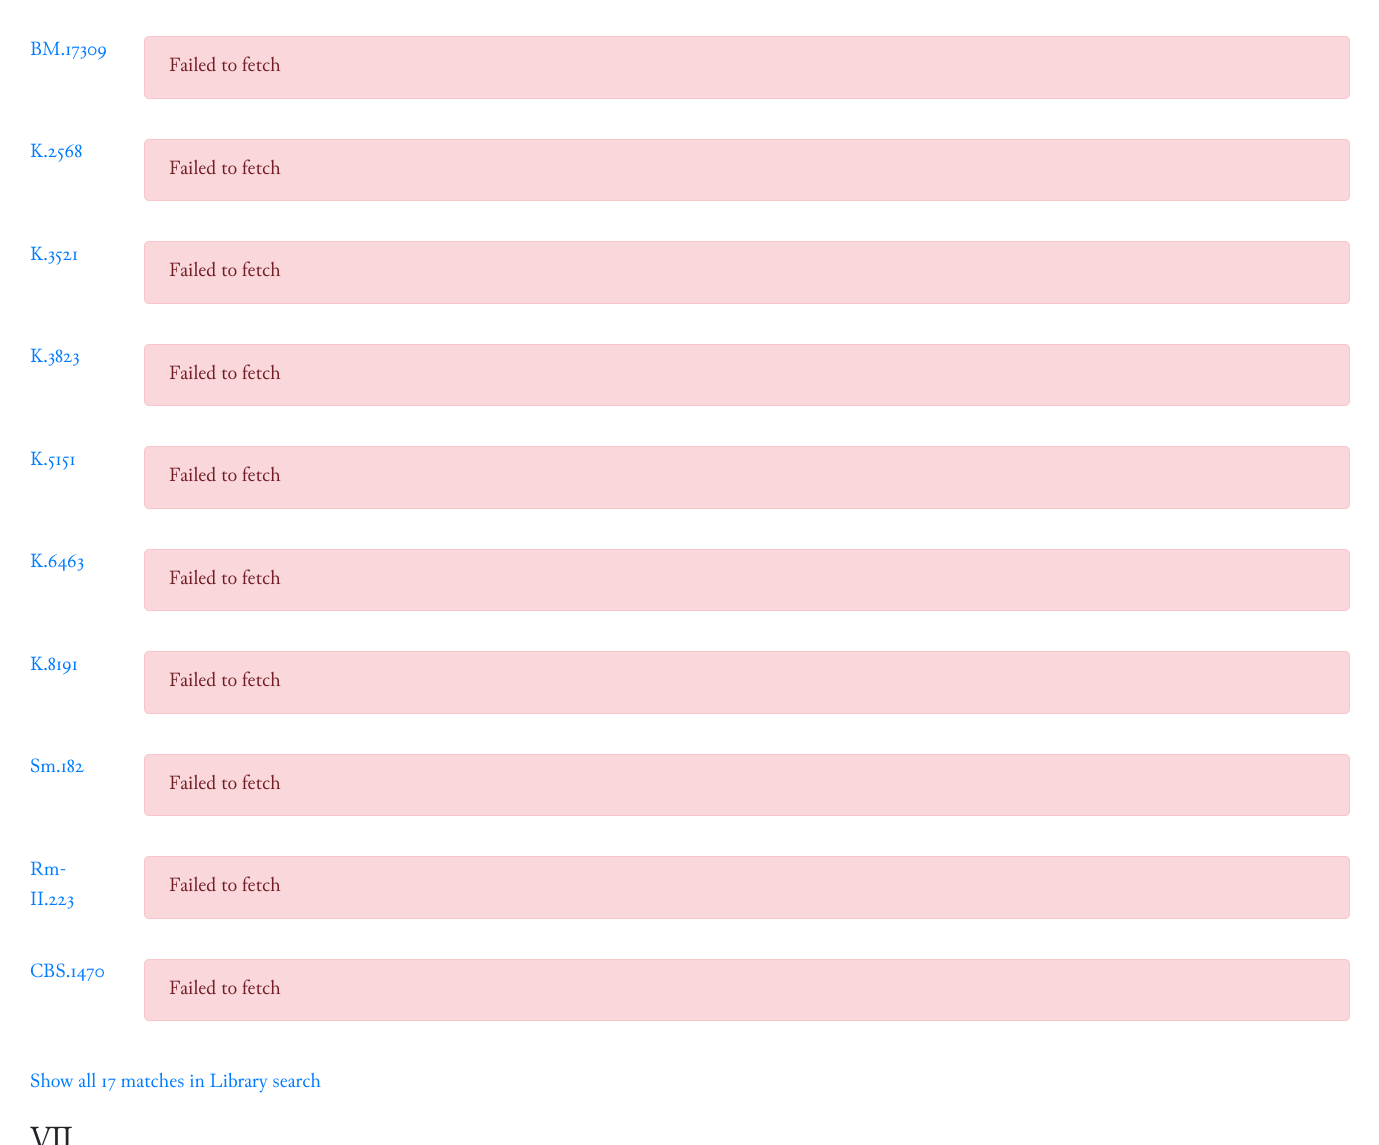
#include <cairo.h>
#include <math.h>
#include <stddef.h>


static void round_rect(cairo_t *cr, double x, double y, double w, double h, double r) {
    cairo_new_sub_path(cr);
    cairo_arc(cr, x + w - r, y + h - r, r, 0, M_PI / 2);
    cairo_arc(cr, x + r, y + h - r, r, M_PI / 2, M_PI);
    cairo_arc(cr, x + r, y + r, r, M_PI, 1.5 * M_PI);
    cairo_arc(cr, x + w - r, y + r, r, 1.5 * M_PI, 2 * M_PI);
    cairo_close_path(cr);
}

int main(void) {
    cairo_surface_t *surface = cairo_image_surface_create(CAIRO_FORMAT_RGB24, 1379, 1145);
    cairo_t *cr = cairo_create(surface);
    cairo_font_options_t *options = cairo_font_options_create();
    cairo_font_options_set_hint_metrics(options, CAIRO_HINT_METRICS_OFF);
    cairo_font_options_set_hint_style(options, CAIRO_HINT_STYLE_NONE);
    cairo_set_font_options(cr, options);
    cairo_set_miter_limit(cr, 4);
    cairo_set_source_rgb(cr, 1, 1, 1);
    cairo_paint(cr);
    cairo_select_font_face(cr, "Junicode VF", CAIRO_FONT_SLANT_NORMAL, CAIRO_FONT_WEIGHT_NORMAL);
    cairo_set_font_size(cr, 20);
    cairo_set_source_rgb(cr, 0, 0.482, 1);
    cairo_move_to(cr, 30, 55);
    cairo_show_text(cr, "BM.17309");
    cairo_set_source_rgb(cr, 0.973, 0.843, 0.855);
    round_rect(cr, 144.5, 36.5, 1205, 62, 4.5);
    cairo_fill_preserve(cr);
    cairo_set_source_rgb(cr, 0.961, 0.776, 0.796);
    cairo_set_line_width(cr, 1);
    cairo_stroke(cr);
    cairo_set_source_rgb(cr, 0.447, 0.11, 0.141);
    cairo_move_to(cr, 169, 71);
    cairo_show_text(cr, "Failed to fetch");
    cairo_set_source_rgb(cr, 0, 0.482, 1);
    cairo_move_to(cr, 30, 157);
    cairo_show_text(cr, "K.2568");
    cairo_set_source_rgb(cr, 0.973, 0.843, 0.855);
    round_rect(cr, 144.5, 139.5, 1205, 61, 4.5);
    cairo_fill_preserve(cr);
    cairo_set_source_rgb(cr, 0.961, 0.776, 0.796);
    cairo_stroke(cr);
    cairo_set_source_rgb(cr, 0.447, 0.11, 0.141);
    cairo_move_to(cr, 169, 174);
    cairo_show_text(cr, "Failed to fetch");
    cairo_set_source_rgb(cr, 0, 0.482, 1);
    cairo_move_to(cr, 30, 260);
    cairo_show_text(cr, "K.3521");
    cairo_set_source_rgb(cr, 0.973, 0.843, 0.855);
    round_rect(cr, 144.5, 241.5, 1205, 62, 4.5);
    cairo_fill_preserve(cr);
    cairo_set_source_rgb(cr, 0.961, 0.776, 0.796);
    cairo_stroke(cr);
    cairo_set_source_rgb(cr, 0.447, 0.11, 0.141);
    cairo_move_to(cr, 169, 276);
    cairo_show_text(cr, "Failed to fetch");
    cairo_set_source_rgb(cr, 0, 0.482, 1);
    cairo_move_to(cr, 30, 362);
    cairo_show_text(cr, "K.3823");
    cairo_set_source_rgb(cr, 0.973, 0.843, 0.855);
    round_rect(cr, 144.5, 344.5, 1205, 61, 4.5);
    cairo_fill_preserve(cr);
    cairo_set_source_rgb(cr, 0.961, 0.776, 0.796);
    cairo_stroke(cr);
    cairo_set_source_rgb(cr, 0.447, 0.11, 0.141);
    cairo_move_to(cr, 169, 379);
    cairo_show_text(cr, "Failed to fetch");
    cairo_set_source_rgb(cr, 0, 0.482, 1);
    cairo_move_to(cr, 30, 465);
    cairo_show_text(cr, "K.5151");
    cairo_set_source_rgb(cr, 0.973, 0.843, 0.855);
    round_rect(cr, 144.5, 446.5, 1205, 62, 4.5);
    cairo_fill_preserve(cr);
    cairo_set_source_rgb(cr, 0.961, 0.776, 0.796);
    cairo_stroke(cr);
    cairo_set_source_rgb(cr, 0.447, 0.11, 0.141);
    cairo_move_to(cr, 169, 481);
    cairo_show_text(cr, "Failed to fetch");
    cairo_set_source_rgb(cr, 0, 0.482, 1);
    cairo_move_to(cr, 30, 567);
    cairo_show_text(cr, "K.6463");
    cairo_set_source_rgb(cr, 0.973, 0.843, 0.855);
    round_rect(cr, 144.5, 549.5, 1205, 61, 4.5);
    cairo_fill_preserve(cr);
    cairo_set_source_rgb(cr, 0.961, 0.776, 0.796);
    cairo_stroke(cr);
    cairo_set_source_rgb(cr, 0.447, 0.11, 0.141);
    cairo_move_to(cr, 169, 584);
    cairo_show_text(cr, "Failed to fetch");
    cairo_set_source_rgb(cr, 0, 0.482, 1);
    cairo_move_to(cr, 30, 670);
    cairo_show_text(cr, "K.8191");
    cairo_set_source_rgb(cr, 0.973, 0.843, 0.855);
    round_rect(cr, 144.5, 651.5, 1205, 62, 4.5);
    cairo_fill_preserve(cr);
    cairo_set_source_rgb(cr, 0.961, 0.776, 0.796);
    cairo_stroke(cr);
    cairo_set_source_rgb(cr, 0.447, 0.11, 0.141);
    cairo_move_to(cr, 169, 686);
    cairo_show_text(cr, "Failed to fetch");
    cairo_set_source_rgb(cr, 0, 0.482, 1);
    cairo_move_to(cr, 30, 772);
    cairo_show_text(cr, "Sm.182");
    cairo_set_source_rgb(cr, 0.973, 0.843, 0.855);
    round_rect(cr, 144.5, 754.5, 1205, 61, 4.5);
    cairo_fill_preserve(cr);
    cairo_set_source_rgb(cr, 0.961, 0.776, 0.796);
    cairo_stroke(cr);
    cairo_set_source_rgb(cr, 0.447, 0.11, 0.141);
    cairo_move_to(cr, 169, 789);
    cairo_show_text(cr, "Failed to fetch");
    cairo_set_source_rgb(cr, 0, 0.482, 1);
    cairo_move_to(cr, 30, 875);
    cairo_show_text(cr, "Rm-");
    cairo_move_to(cr, 30, 905);
    cairo_show_text(cr, "II.223");
    cairo_set_source_rgb(cr, 0.973, 0.843, 0.855);
    round_rect(cr, 144.5, 856.5, 1205, 62, 4.5);
    cairo_fill_preserve(cr);
    cairo_set_source_rgb(cr, 0.961, 0.776, 0.796);
    cairo_stroke(cr);
    cairo_set_source_rgb(cr, 0.447, 0.11, 0.141);
    cairo_move_to(cr, 169, 891);
    cairo_show_text(cr, "Failed to fetch");
    cairo_set_source_rgb(cr, 0, 0.482, 1);
    cairo_move_to(cr, 30, 977);
    cairo_show_text(cr, "CBS.1470");
    cairo_set_source_rgb(cr, 0.973, 0.843, 0.855);
    round_rect(cr, 144.5, 959.5, 1205, 61, 4.5);
    cairo_fill_preserve(cr);
    cairo_set_source_rgb(cr, 0.961, 0.776, 0.796);
    cairo_stroke(cr);
    cairo_set_source_rgb(cr, 0.447, 0.11, 0.141);
    cairo_move_to(cr, 169, 994);
    cairo_show_text(cr, "Failed to fetch");
    cairo_set_source_rgb(cr, 0, 0.482, 1);
    cairo_move_to(cr, 30, 1087);
    cairo_show_text(cr, "Show all 17 matches in Library search");
    cairo_set_font_size(cr, 35);
    cairo_set_source_rgb(cr, 0.129, 0.145, 0.161);
    cairo_move_to(cr, 30, 1150);
    cairo_show_text(cr, "Ⅶ");
    cairo_surface_write_to_png(surface, "page.png");
    cairo_font_options_destroy(options);
    cairo_destroy(cr);
    cairo_surface_destroy(surface);
    return 0;
}
